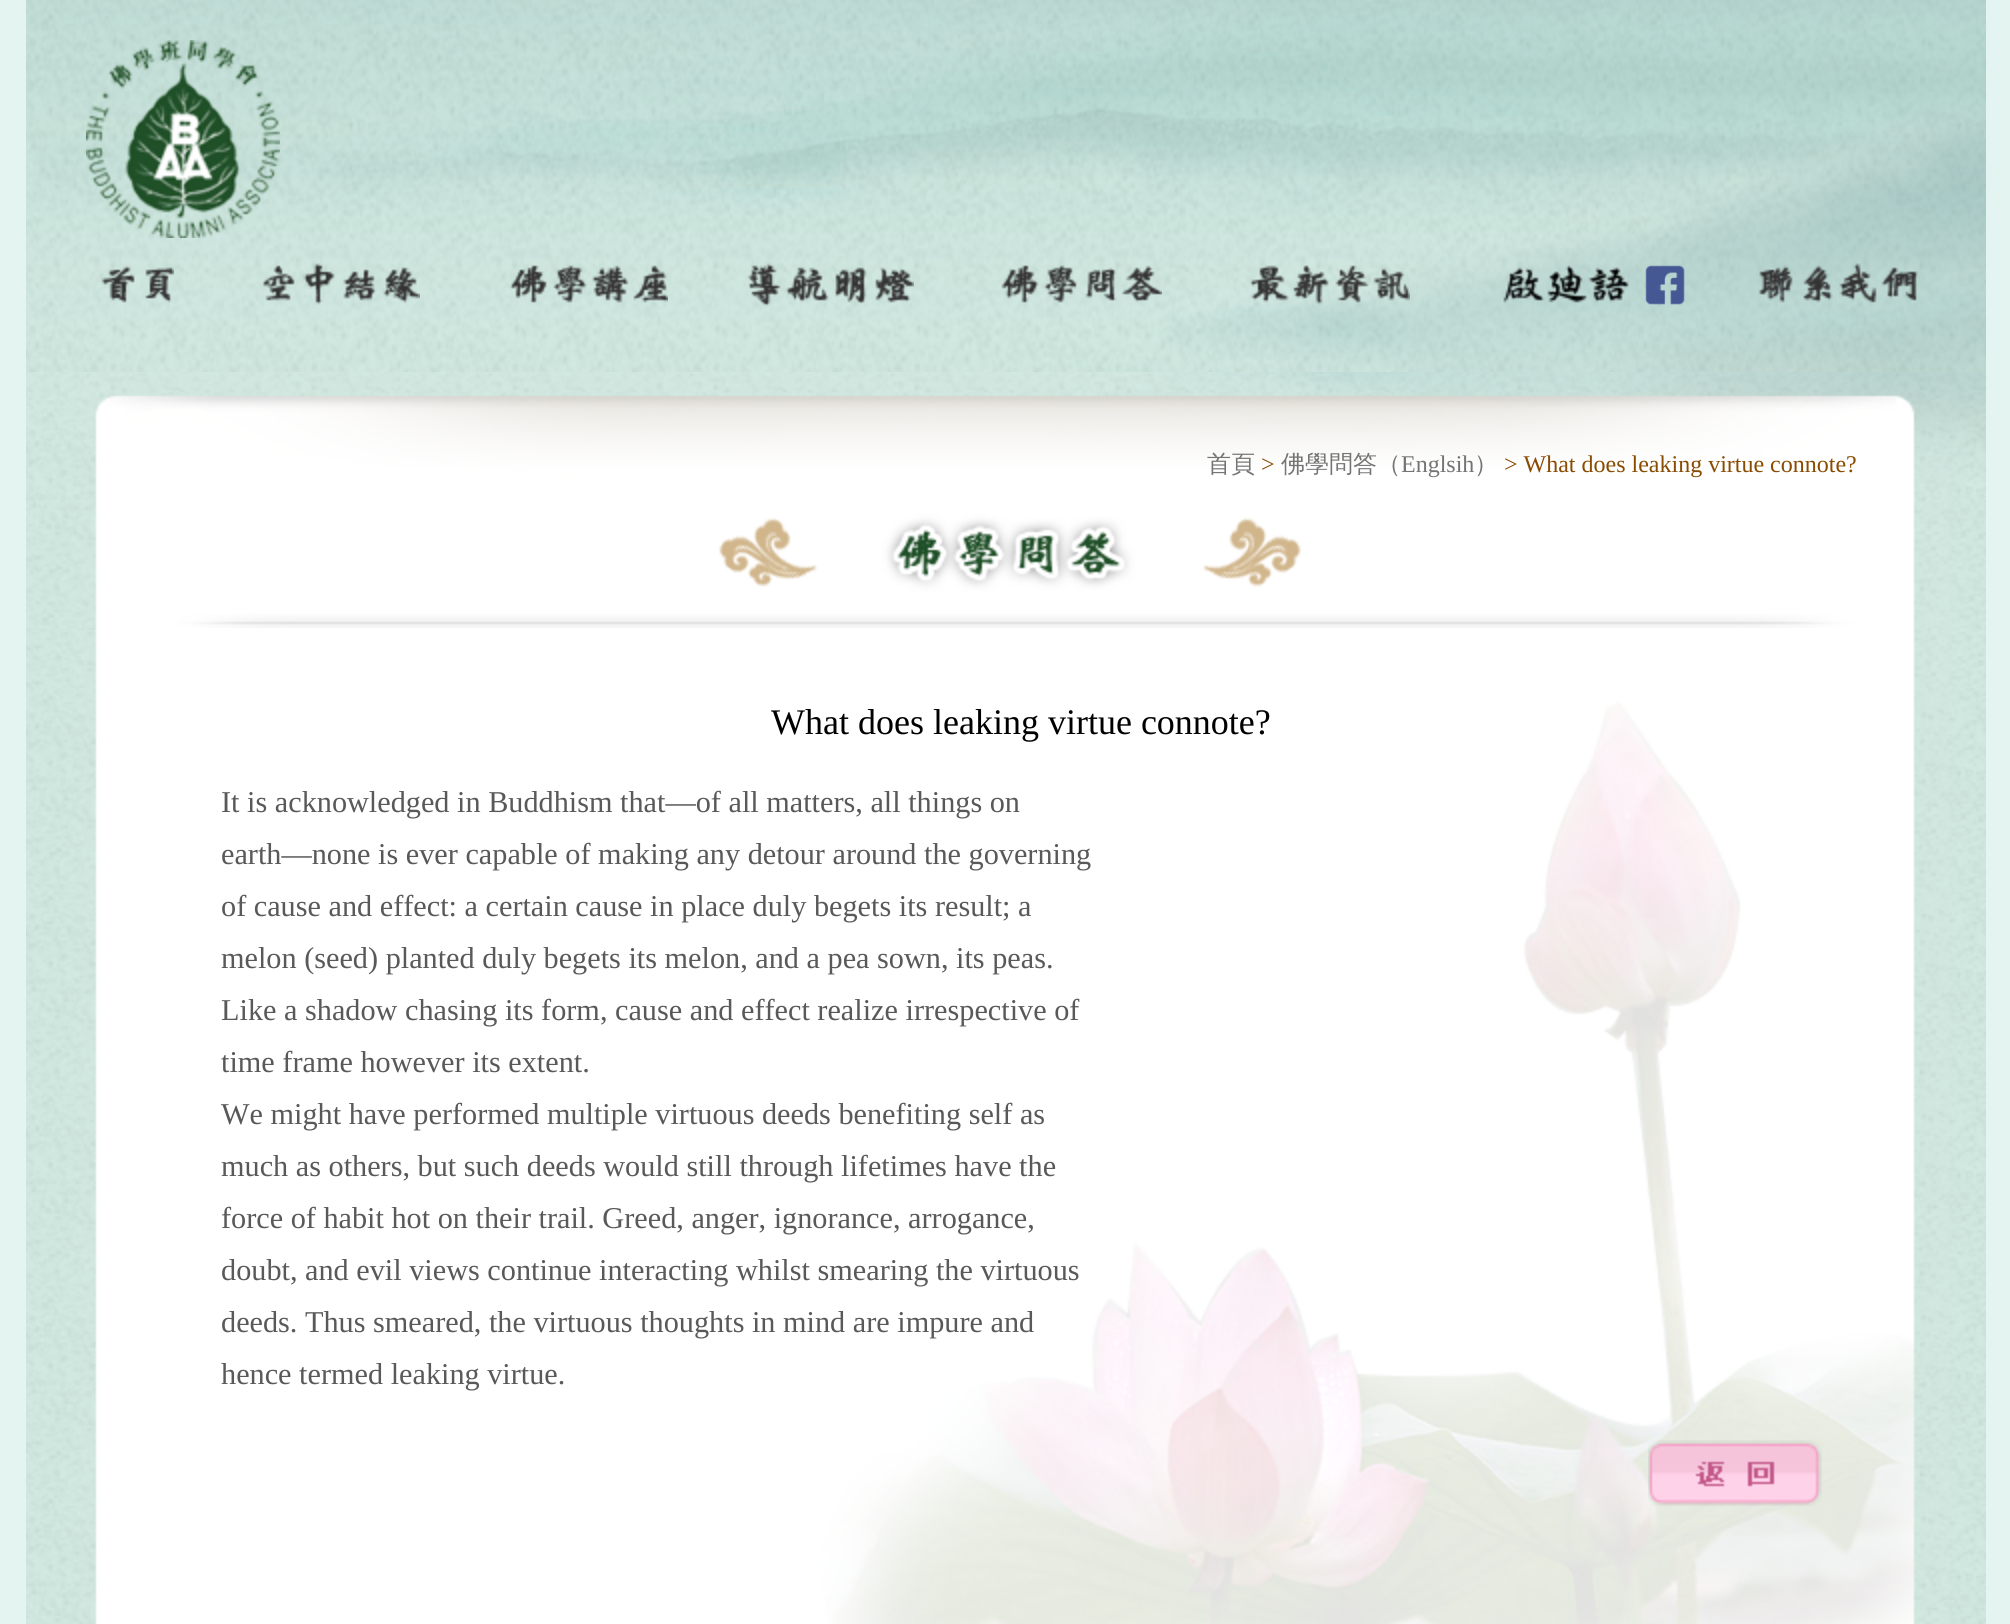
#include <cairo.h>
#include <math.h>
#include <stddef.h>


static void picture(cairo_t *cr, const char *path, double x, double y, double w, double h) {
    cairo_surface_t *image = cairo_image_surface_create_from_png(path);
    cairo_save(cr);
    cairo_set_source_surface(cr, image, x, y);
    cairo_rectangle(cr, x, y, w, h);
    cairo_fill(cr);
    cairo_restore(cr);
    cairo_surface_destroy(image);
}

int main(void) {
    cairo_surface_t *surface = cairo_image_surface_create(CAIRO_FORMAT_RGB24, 2010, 1624);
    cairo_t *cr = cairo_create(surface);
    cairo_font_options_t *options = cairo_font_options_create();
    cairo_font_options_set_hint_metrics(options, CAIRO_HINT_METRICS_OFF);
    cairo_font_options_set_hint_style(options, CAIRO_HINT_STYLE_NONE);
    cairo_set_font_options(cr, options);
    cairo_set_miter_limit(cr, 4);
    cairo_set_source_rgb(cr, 0.894, 0.957, 0.941);
    cairo_paint(cr);
    picture(cr, "img1.png", 26, 0, 1960, 372);
    picture(cr, "img2.png", 86, 40, 194, 198);
    picture(cr, "img3.png", 101, 265, 73, 38);
    picture(cr, "img4.png", 262, 263, 158, 42);
    picture(cr, "img5.png", 509, 265, 159, 38);
    picture(cr, "img6.png", 747, 263, 167, 44);
    picture(cr, "img7.png", 1001, 265, 161, 38);
    picture(cr, "img8.png", 1249, 265, 161, 40);
    picture(cr, "img9.png", 1503, 265, 126, 38);
    picture(cr, "img10.png", 1645, 265, 40, 40);
    picture(cr, "img11.png", 1758, 263, 160, 40);
    picture(cr, "img12.png", 26, 628, 1960, 60);
    picture(cr, "img13.png", 26, 372, 1960, 256);
    cairo_select_font_face(cr, "WenQuanYi Zen Hei Medium", CAIRO_FONT_SLANT_NORMAL, CAIRO_FONT_WEIGHT_NORMAL);
    cairo_set_font_size(cr, 24);
    cairo_set_source_rgb(cr, 0.455, 0.455, 0.455);
    cairo_move_to(cr, 1207, 472);
    cairo_show_text(cr, "首頁");
    cairo_select_font_face(cr, "Liberation Serif", CAIRO_FONT_SLANT_NORMAL, CAIRO_FONT_WEIGHT_NORMAL);
    cairo_set_source_rgb(cr, 0.537, 0.294, 0.004);
    cairo_move_to(cr, 1261, 472);
    cairo_show_text(cr, ">");
    cairo_select_font_face(cr, "WenQuanYi Zen Hei Medium", CAIRO_FONT_SLANT_NORMAL, CAIRO_FONT_WEIGHT_NORMAL);
    cairo_set_source_rgb(cr, 0.455, 0.455, 0.455);
    cairo_move_to(cr, 1281, 472);
    cairo_show_text(cr, "佛學問答（");
    cairo_select_font_face(cr, "Liberation Serif", CAIRO_FONT_SLANT_NORMAL, CAIRO_FONT_WEIGHT_NORMAL);
    cairo_move_to(cr, 1401, 472);
    cairo_show_text(cr, "Englsih");
    cairo_select_font_face(cr, "WenQuanYi Zen Hei Medium", CAIRO_FONT_SLANT_NORMAL, CAIRO_FONT_WEIGHT_NORMAL);
    cairo_move_to(cr, 1474, 472);
    cairo_show_text(cr, "）");
    cairo_select_font_face(cr, "Liberation Serif", CAIRO_FONT_SLANT_NORMAL, CAIRO_FONT_WEIGHT_NORMAL);
    cairo_set_source_rgb(cr, 0.537, 0.294, 0.004);
    cairo_move_to(cr, 1504, 472);
    cairo_show_text(cr, "> What does leaking virtue connote?");
    picture(cr, "img14.png", 26, 688, 1960, 936);
    cairo_set_font_size(cr, 36);
    cairo_set_source_rgb(cr, 0, 0, 0);
    cairo_move_to(cr, 771, 734);
    cairo_show_text(cr, "What does leaking virtue connote?");
    cairo_set_font_size(cr, 30.25);
    cairo_set_source_rgb(cr, 0.349, 0.349, 0.349);
    cairo_move_to(cr, 221, 812);
    cairo_show_text(cr, "It is acknowledged in Buddhism that—of all matters, all things on");
    cairo_move_to(cr, 221, 864);
    cairo_show_text(cr, "earth—none is ever capable of making any detour around the governing");
    cairo_move_to(cr, 221, 916);
    cairo_show_text(cr, "of cause and effect: a certain cause in place duly begets its result; a");
    cairo_move_to(cr, 221, 968);
    cairo_show_text(cr, "melon (seed) planted duly begets its melon, and a pea sown, its peas.");
    cairo_move_to(cr, 221, 1020);
    cairo_show_text(cr, "Like a shadow chasing its form, cause and effect realize irrespective of");
    cairo_move_to(cr, 221, 1072);
    cairo_show_text(cr, "time frame however its extent.");
    cairo_move_to(cr, 221, 1124);
    cairo_show_text(cr, "We might have performed multiple virtuous deeds benefiting self as");
    cairo_move_to(cr, 221, 1176);
    cairo_show_text(cr, "much as others, but such deeds would still through lifetimes have the");
    cairo_move_to(cr, 221, 1228);
    cairo_show_text(cr, "force of habit hot on their trail. Greed, anger, ignorance, arrogance,");
    cairo_move_to(cr, 221, 1280);
    cairo_show_text(cr, "doubt, and evil views continue interacting whilst smearing the virtuous");
    cairo_move_to(cr, 221, 1332);
    cairo_show_text(cr, "deeds. Thus smeared, the virtuous thoughts in mind are impure and");
    cairo_move_to(cr, 221, 1384);
    cairo_show_text(cr, "hence termed leaking virtue.");
    picture(cr, "img15.png", 1648, 1440, 174, 66);
    cairo_surface_write_to_png(surface, "page.png");
    cairo_font_options_destroy(options);
    cairo_destroy(cr);
    cairo_surface_destroy(surface);
    return 0;
}
